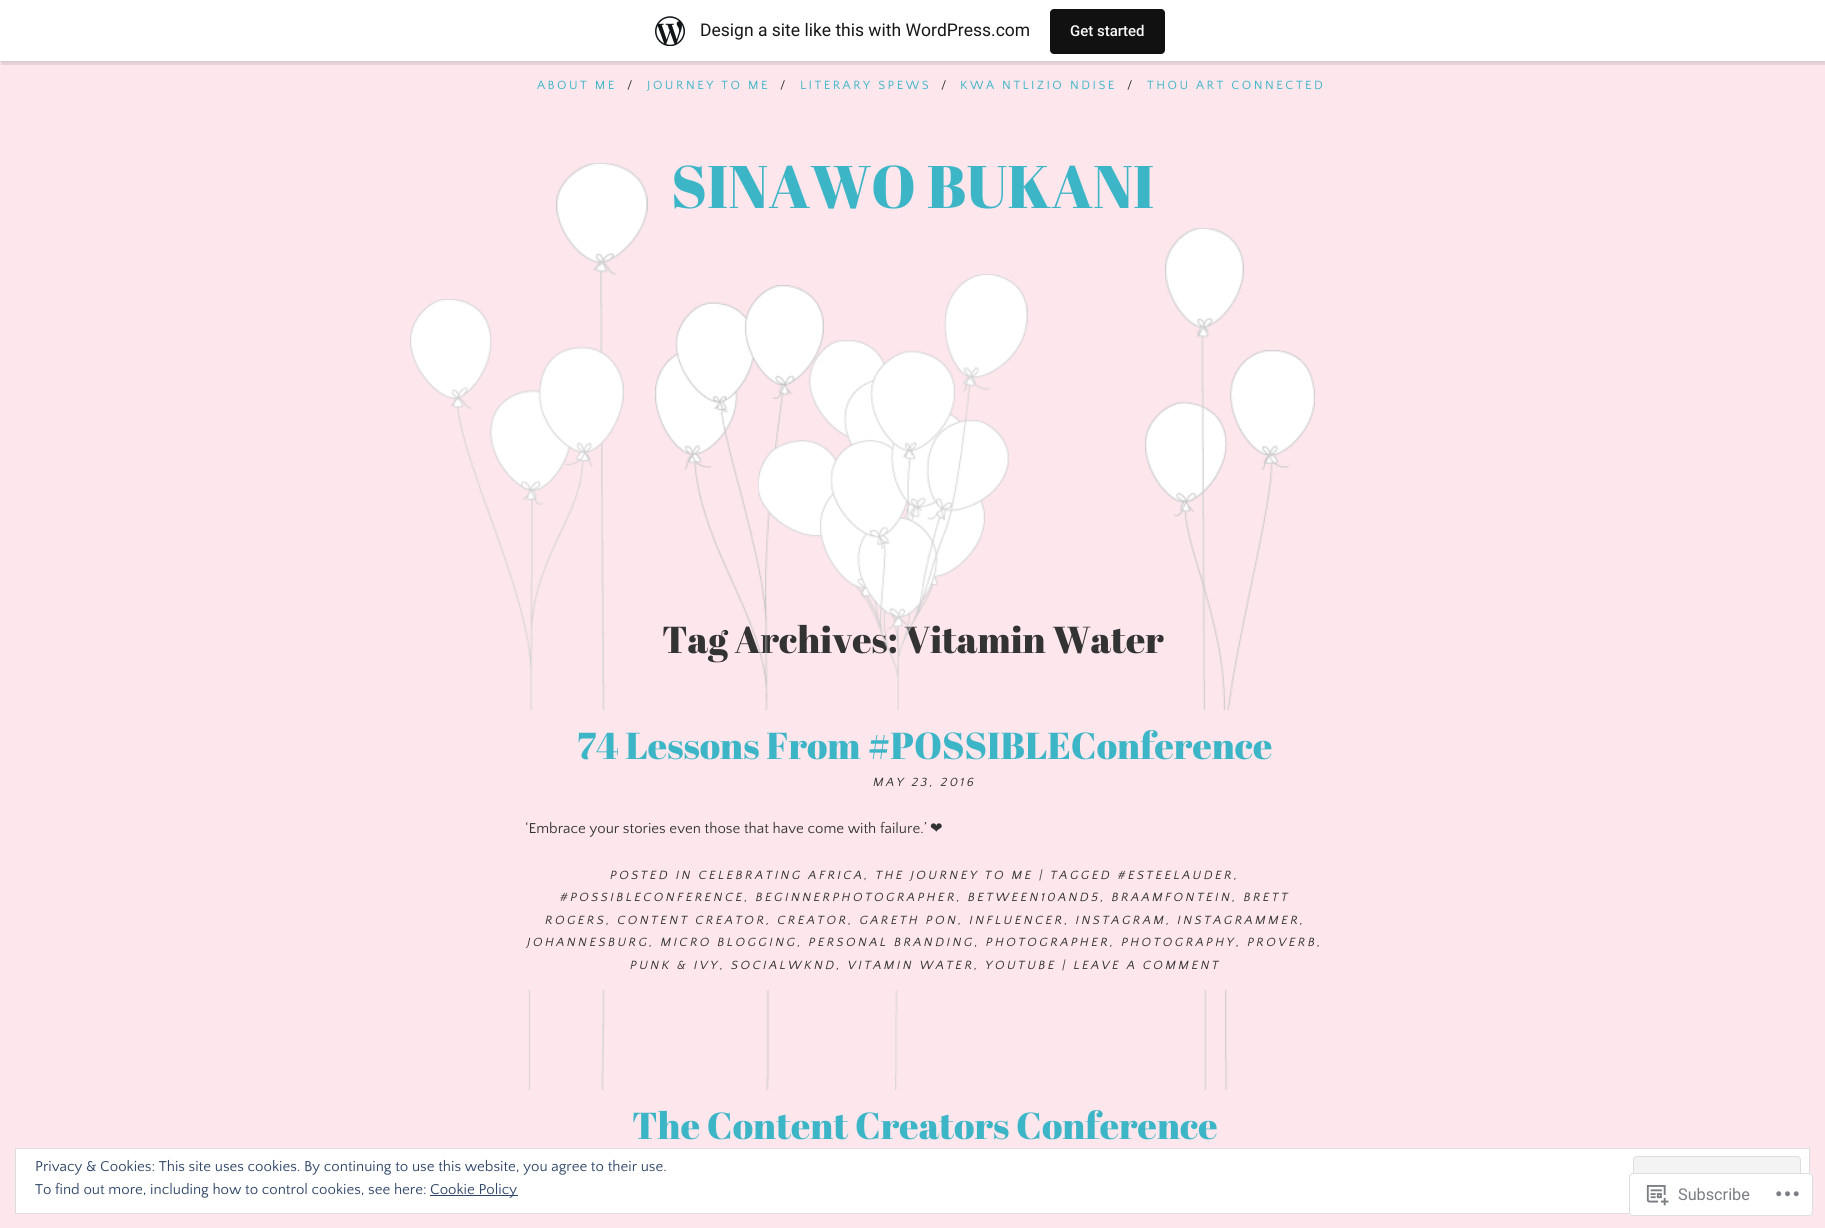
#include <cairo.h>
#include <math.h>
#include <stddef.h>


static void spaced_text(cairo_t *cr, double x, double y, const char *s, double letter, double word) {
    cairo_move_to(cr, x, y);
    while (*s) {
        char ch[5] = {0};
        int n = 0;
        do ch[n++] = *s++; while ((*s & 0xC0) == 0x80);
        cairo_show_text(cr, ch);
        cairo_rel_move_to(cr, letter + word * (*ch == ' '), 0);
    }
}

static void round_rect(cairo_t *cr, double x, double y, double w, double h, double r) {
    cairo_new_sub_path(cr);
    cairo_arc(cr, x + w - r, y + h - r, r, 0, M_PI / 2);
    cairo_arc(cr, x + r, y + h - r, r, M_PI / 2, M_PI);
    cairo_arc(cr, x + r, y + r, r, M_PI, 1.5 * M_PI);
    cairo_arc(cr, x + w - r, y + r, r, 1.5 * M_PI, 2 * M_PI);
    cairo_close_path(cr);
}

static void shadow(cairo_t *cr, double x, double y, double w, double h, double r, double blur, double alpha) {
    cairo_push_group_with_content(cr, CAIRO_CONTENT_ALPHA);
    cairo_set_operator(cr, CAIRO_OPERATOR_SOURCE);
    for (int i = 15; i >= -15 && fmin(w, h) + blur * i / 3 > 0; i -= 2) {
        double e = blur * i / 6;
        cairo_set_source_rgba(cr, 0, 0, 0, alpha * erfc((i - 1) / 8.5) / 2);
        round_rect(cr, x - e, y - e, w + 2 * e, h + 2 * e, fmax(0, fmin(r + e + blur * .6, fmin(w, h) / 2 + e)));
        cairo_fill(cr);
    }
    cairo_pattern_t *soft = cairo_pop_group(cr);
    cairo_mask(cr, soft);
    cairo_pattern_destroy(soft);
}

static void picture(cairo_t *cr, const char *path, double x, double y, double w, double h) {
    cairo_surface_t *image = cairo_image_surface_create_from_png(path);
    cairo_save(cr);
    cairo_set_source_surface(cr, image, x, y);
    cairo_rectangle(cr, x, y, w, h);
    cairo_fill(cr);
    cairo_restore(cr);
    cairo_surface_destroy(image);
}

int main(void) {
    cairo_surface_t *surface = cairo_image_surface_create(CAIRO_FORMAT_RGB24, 1825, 1228);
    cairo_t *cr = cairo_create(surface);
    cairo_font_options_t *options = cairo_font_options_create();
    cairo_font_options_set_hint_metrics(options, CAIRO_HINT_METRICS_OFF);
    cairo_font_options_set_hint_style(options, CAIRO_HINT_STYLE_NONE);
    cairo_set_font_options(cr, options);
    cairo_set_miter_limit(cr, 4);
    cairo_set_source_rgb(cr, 0.992, 0.906, 0.922);
    cairo_paint(cr);
    cairo_set_source_rgb(cr, 0, 0, 0);
    shadow(cr, 0, 1, 1825, 62, 0, 1, 0.05);
    cairo_set_source_rgba(cr, 0, 0, 0, 0.08);
    cairo_new_path(cr);
    cairo_move_to(cr, 1, 61);
    cairo_line_to(cr, 1, 65);
    cairo_line_to(cr, 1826, 65);
    cairo_line_to(cr, 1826, 4);
    cairo_line_to(cr, 1825, 4);
    cairo_line_to(cr, 1825, 61);
    cairo_close_path(cr);
    cairo_fill(cr);
    cairo_set_source_rgb(cr, 1, 1, 1);
    cairo_rectangle(cr, 0, 0, 1825, 61);
    cairo_fill(cr);
    picture(cr, "img1.png", 655, 16, 30, 30);
    cairo_select_font_face(cr, "Roboto", CAIRO_FONT_SLANT_NORMAL, CAIRO_FONT_WEIGHT_NORMAL);
    cairo_set_font_size(cr, 17.5);
    cairo_set_source_rgb(cr, 0.09, 0.09, 0.09);
    cairo_move_to(cr, 700, 36);
    cairo_show_text(cr, "Design a site like this with WordPress.com");
    cairo_set_source_rgb(cr, 0.067, 0.067, 0.067);
    round_rect(cr, 1050, 9, 115, 45, 4);
    cairo_fill(cr);
    cairo_select_font_face(cr, "Roboto Medium", CAIRO_FONT_SLANT_NORMAL, CAIRO_FONT_WEIGHT_NORMAL);
    cairo_set_font_size(cr, 15);
    cairo_set_source_rgb(cr, 0.965, 0.969, 0.969);
    cairo_move_to(cr, 1070, 36);
    cairo_show_text(cr, "Get started");
    cairo_select_font_face(cr, "Quattrocento Sans", CAIRO_FONT_SLANT_NORMAL, CAIRO_FONT_WEIGHT_NORMAL);
    cairo_set_font_size(cr, 12.5);
    cairo_set_source_rgb(cr, 0.235, 0.71, 0.78);
    spaced_text(cr, 537, 89, "ABOUT ME", 2.5, 0);
    cairo_set_source_rgb(cr, 0.2, 0.2, 0.2);
    spaced_text(cr, 627, 89, "/", 2.5, 0);
    cairo_set_source_rgb(cr, 0.235, 0.71, 0.78);
    spaced_text(cr, 647, 89, "JOURNEY TO ME", 2.5, 0);
    cairo_set_source_rgb(cr, 0.2, 0.2, 0.2);
    spaced_text(cr, 780, 89, "/", 2.5, 0);
    cairo_set_source_rgb(cr, 0.235, 0.71, 0.78);
    spaced_text(cr, 800, 89, "LITERARY SPEWS", 2.5, 0);
    cairo_set_source_rgb(cr, 0.2, 0.2, 0.2);
    spaced_text(cr, 941, 89, "/", 2.5, 0);
    cairo_set_source_rgb(cr, 0.235, 0.71, 0.78);
    spaced_text(cr, 960, 89, "KWA NTLIZIO NDISE", 2.5, 0);
    cairo_set_source_rgb(cr, 0.2, 0.2, 0.2);
    spaced_text(cr, 1127, 89, "/", 2.5, 0);
    cairo_set_source_rgb(cr, 0.235, 0.71, 0.78);
    spaced_text(cr, 1147, 89, "THOU ART CONNECTED", 2.5, 0);
    cairo_select_font_face(cr, "Abril Fatface", CAIRO_FONT_SLANT_NORMAL, CAIRO_FONT_WEIGHT_NORMAL);
    cairo_set_font_size(cr, 60);
    cairo_move_to(cr, 671, 208);
    cairo_show_text(cr, "SINAWO BUKANI");
    cairo_set_font_size(cr, 37.5);
    cairo_set_source_rgb(cr, 0.2, 0.2, 0.2);
    cairo_move_to(cr, 662, 653);
    cairo_show_text(cr, "Tag Archives: Vitamin Water");
    picture(cr, "img2.png", 556, 163, 92, 927);
    picture(cr, "img3.png", 655, 285, 169, 805);
    picture(cr, "img4.png", 758, 274, 270, 816);
    picture(cr, "img7.png", 1145, 350, 170, 740);
    picture(cr, "img5.png", 1165, 228, 79, 862);
    picture(cr, "img6.png", 410, 299, 214, 791);
    cairo_set_source_rgb(cr, 0.992, 0.906, 0.922);
    round_rect(cr, 513, 710, 825, 280, 10);
    cairo_fill(cr);
    cairo_set_source_rgb(cr, 0.235, 0.71, 0.78);
    cairo_move_to(cr, 577, 759);
    cairo_show_text(cr, "74 Lessons From #POSSIBLEConference");
    cairo_select_font_face(cr, "Quattrocento Sans", CAIRO_FONT_SLANT_ITALIC, CAIRO_FONT_WEIGHT_NORMAL);
    cairo_set_font_size(cr, 12.5);
    cairo_set_source_rgb(cr, 0.2, 0.2, 0.2);
    spaced_text(cr, 873, 786, "MAY 23, 2016", 2.5, 0);
    cairo_select_font_face(cr, "Quattrocento Sans", CAIRO_FONT_SLANT_NORMAL, CAIRO_FONT_WEIGHT_NORMAL);
    cairo_set_font_size(cr, 15);
    cairo_move_to(cr, 525, 833);
    cairo_show_text(cr, "‘Embrace your stories even those that have come with failure.’");
    cairo_select_font_face(cr, "DejaVu Sans", CAIRO_FONT_SLANT_NORMAL, CAIRO_FONT_WEIGHT_NORMAL);
    cairo_move_to(cr, 930, 833);
    cairo_show_text(cr, "❤");
    cairo_select_font_face(cr, "Quattrocento Sans", CAIRO_FONT_SLANT_ITALIC, CAIRO_FONT_WEIGHT_NORMAL);
    cairo_set_font_size(cr, 12.5);
    spaced_text(cr, 610, 879, "POSTED IN CELEBRATING AFRICA, THE JOURNEY TO ME | TAGGED #ESTEELAUDER,", 2.5, 0);
    spaced_text(cr, 560, 901, "#POSSIBLECONFERENCE, BEGINNERPHOTOGRAPHER, BETWEEN10AND5, BRAAMFONTEIN, BRETT", 2.5, 0);
    spaced_text(cr, 545, 924, "ROGERS, CONTENT CREATOR, CREATOR, GARETH PON, INFLUENCER, INSTAGRAM, INSTAGRAMMER,", 2.5, 0);
    spaced_text(cr, 527, 946, "JOHANNESBURG, MICRO BLOGGING, PERSONAL BRANDING, PHOTOGRAPHER, PHOTOGRAPHY, PROVERB,", 2.5, 0);
    spaced_text(cr, 630, 969, "PUNK & IVY, SOCIALWKND, VITAMIN WATER, YOUTUBE | LEAVE A COMMENT", 2.5, 0);
    cairo_select_font_face(cr, "Abril Fatface", CAIRO_FONT_SLANT_NORMAL, CAIRO_FONT_WEIGHT_NORMAL);
    cairo_set_font_size(cr, 37.5);
    cairo_set_source_rgb(cr, 0.235, 0.71, 0.78);
    cairo_move_to(cr, 632, 1139);
    cairo_show_text(cr, "The Content Creators Conference");
    cairo_set_source_rgb(cr, 1, 1, 1);
    cairo_rectangle(cr, 15.5, 1148.5, 1794, 65);
    cairo_fill_preserve(cr);
    cairo_set_source_rgb(cr, 0.871, 0.871, 0.871);
    cairo_set_line_width(cr, 1);
    cairo_stroke(cr);
    cairo_select_font_face(cr, "Quattrocento Sans", CAIRO_FONT_SLANT_NORMAL, CAIRO_FONT_WEIGHT_NORMAL);
    cairo_set_font_size(cr, 15);
    cairo_set_source_rgb(cr, 0.18, 0.267, 0.404);
    cairo_move_to(cr, 35, 1171);
    cairo_show_text(cr, "Privacy & Cookies: This site uses cookies. By continuing to use this website, you agree to their use.");
    cairo_set_source_rgb(cr, 0.953, 0.953, 0.953);
    round_rect(cr, 1633.5, 1156.5, 167, 48, 3.5);
    cairo_fill_preserve(cr);
    cairo_set_source_rgb(cr, 0.871, 0.871, 0.871);
    cairo_stroke(cr);
    cairo_set_source_rgb(cr, 0.18, 0.267, 0.404);
    cairo_move_to(cr, 35, 1194);
    cairo_show_text(cr, "To find out more, including how to control cookies, see here:");
    cairo_rectangle(cr, 430, 1195, 88, 1);
    cairo_fill(cr);
    cairo_move_to(cr, 430, 1194);
    cairo_show_text(cr, "Cookie Policy");
    cairo_set_source_rgba(cr, 1, 1, 1, 0.98);
    round_rect(cr, 1629, 1173, 184, 43, 4);
    cairo_fill(cr);
    round_rect(cr, 1629.5, 1173.5, 183, 42, 3.5);
    cairo_set_source_rgba(cr, 0.863, 0.863, 0.871, 0.98);
    cairo_stroke(cr);
    picture(cr, "img8.png", 1646, 1185, 23, 21);
    cairo_select_font_face(cr, "Roboto", CAIRO_FONT_SLANT_NORMAL, CAIRO_FONT_WEIGHT_NORMAL);
    cairo_set_font_size(cr, 16.25);
    cairo_set_source_rgb(cr, 0.478, 0.494, 0.518);
    cairo_move_to(cr, 1678, 1200);
    cairo_show_text(cr, "Subscribe");
    picture(cr, "img9.png", 1776, 1191, 23, 6);
    cairo_surface_write_to_png(surface, "page.png");
    cairo_font_options_destroy(options);
    cairo_destroy(cr);
    cairo_surface_destroy(surface);
    return 0;
}
